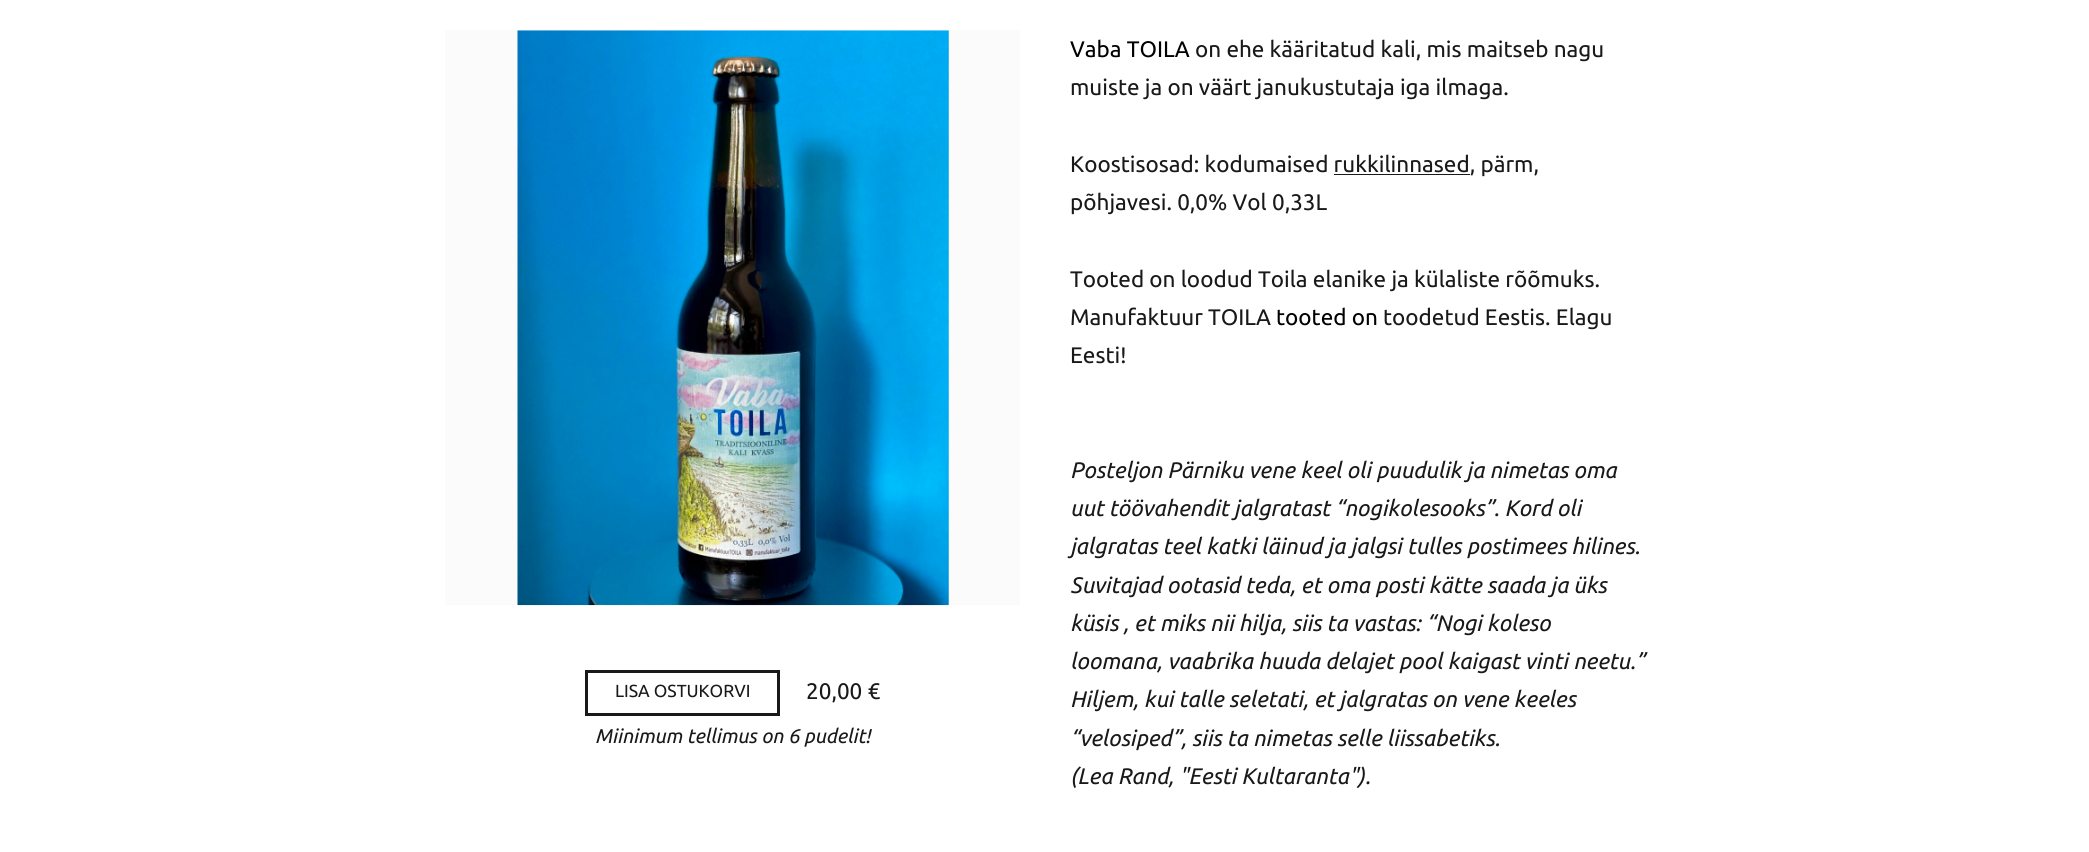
#include <cairo.h>
#include <math.h>
#include <stddef.h>


static void picture(cairo_t *cr, const char *path, double x, double y, double w, double h) {
    cairo_surface_t *image = cairo_image_surface_create_from_png(path);
    cairo_save(cr);
    cairo_set_source_surface(cr, image, x, y);
    cairo_rectangle(cr, x, y, w, h);
    cairo_fill(cr);
    cairo_restore(cr);
    cairo_surface_destroy(image);
}

int main(void) {
    cairo_surface_t *surface = cairo_image_surface_create(CAIRO_FORMAT_RGB24, 2089, 852);
    cairo_t *cr = cairo_create(surface);
    cairo_font_options_t *options = cairo_font_options_create();
    cairo_font_options_set_hint_metrics(options, CAIRO_HINT_METRICS_OFF);
    cairo_font_options_set_hint_style(options, CAIRO_HINT_STYLE_NONE);
    cairo_set_font_options(cr, options);
    cairo_set_miter_limit(cr, 4);
    cairo_set_source_rgb(cr, 1, 1, 1);
    cairo_paint(cr);
    cairo_set_source_rgb(cr, 0.984, 0.984, 0.984);
    cairo_rectangle(cr, 445, 30, 575, 575);
    cairo_fill(cr);
    picture(cr, "img1.png", 517, 30, 432, 576);
    cairo_rectangle(cr, 586.5, 671.5, 192, 43);
    cairo_set_source_rgb(cr, 0.098, 0.098, 0.098);
    cairo_set_line_width(cr, 3);
    cairo_stroke(cr);
    cairo_select_font_face(cr, "Ubuntu", CAIRO_FONT_SLANT_NORMAL, CAIRO_FONT_WEIGHT_NORMAL);
    cairo_set_font_size(cr, 17.5);
    cairo_move_to(cr, 615, 697);
    cairo_show_text(cr, "LISA OSTUKORVI");
    cairo_set_font_size(cr, 22.5);
    cairo_move_to(cr, 806, 699);
    cairo_show_text(cr, "20,00 €");
    cairo_select_font_face(cr, "Ubuntu", CAIRO_FONT_SLANT_ITALIC, CAIRO_FONT_WEIGHT_NORMAL);
    cairo_set_font_size(cr, 20);
    cairo_move_to(cr, 595, 743);
    cairo_show_text(cr, "Miinimum tellimus on 6 pudelit!");
    cairo_select_font_face(cr, "Ubuntu", CAIRO_FONT_SLANT_NORMAL, CAIRO_FONT_WEIGHT_NORMAL);
    cairo_set_font_size(cr, 22.5);
    cairo_set_source_rgb(cr, 0, 0, 0);
    cairo_move_to(cr, 1070, 57);
    cairo_show_text(cr, "Vaba TOILA");
    cairo_set_source_rgb(cr, 0.098, 0.098, 0.098);
    cairo_move_to(cr, 1195, 57);
    cairo_show_text(cr, "on ehe kääritatud kali, mis maitseb nagu");
    cairo_move_to(cr, 1070, 95);
    cairo_show_text(cr, "muiste ja on väärt janukustutaja iga ilmaga.");
    cairo_move_to(cr, 1070, 172);
    cairo_show_text(cr, "Koostisosad: kodumaised rukkilinnased, pärm,");
    cairo_rectangle(cr, 1334, 174, 136, 1);
    cairo_fill(cr);
    cairo_move_to(cr, 1070, 210);
    cairo_show_text(cr, "põhjavesi. 0,0% Vol 0,33L");
    cairo_move_to(cr, 1070, 287);
    cairo_show_text(cr, "Tooted on loodud Toila elanike ja külaliste rõõmuks.");
    cairo_move_to(cr, 1070, 325);
    cairo_show_text(cr, "Manufaktuur TOILA");
    cairo_set_source_rgb(cr, 0, 0, 0);
    cairo_move_to(cr, 1276, 325);
    cairo_show_text(cr, "tooted on");
    cairo_set_source_rgb(cr, 0.098, 0.098, 0.098);
    cairo_move_to(cr, 1383, 325);
    cairo_show_text(cr, "toodetud Eestis. Elagu");
    cairo_move_to(cr, 1070, 363);
    cairo_show_text(cr, "Eesti!");
    cairo_select_font_face(cr, "Ubuntu", CAIRO_FONT_SLANT_ITALIC, CAIRO_FONT_WEIGHT_NORMAL);
    cairo_move_to(cr, 1070, 478);
    cairo_show_text(cr, "Posteljon Pärniku vene keel oli puudulik ja nimetas oma");
    cairo_move_to(cr, 1070, 516);
    cairo_show_text(cr, "uut töövahendit jalgratast “nogikolesooks”. Kord oli");
    cairo_move_to(cr, 1070, 554);
    cairo_show_text(cr, "jalgratas teel katki läinud ja jalgsi tulles postimees hilines.");
    cairo_move_to(cr, 1070, 593);
    cairo_show_text(cr, "Suvitajad ootasid teda, et oma posti kätte saada ja üks");
    cairo_move_to(cr, 1070, 631);
    cairo_show_text(cr, "küsis , et miks nii hilja, siis ta vastas: “Nogi koleso");
    cairo_move_to(cr, 1070, 669);
    cairo_show_text(cr, "loomana, vaabrika huuda delajet pool kaigast vinti neetu.”");
    cairo_move_to(cr, 1070, 707);
    cairo_show_text(cr, "Hiljem, kui talle seletati, et jalgratas on vene keeles");
    cairo_move_to(cr, 1070, 746);
    cairo_show_text(cr, "“velosiped”, siis ta nimetas selle liissabetiks.");
    cairo_move_to(cr, 1070, 784);
    cairo_show_text(cr, "(Lea Rand, \"Eesti Kultaranta\").");
    cairo_surface_write_to_png(surface, "page.png");
    cairo_font_options_destroy(options);
    cairo_destroy(cr);
    cairo_surface_destroy(surface);
    return 0;
}
